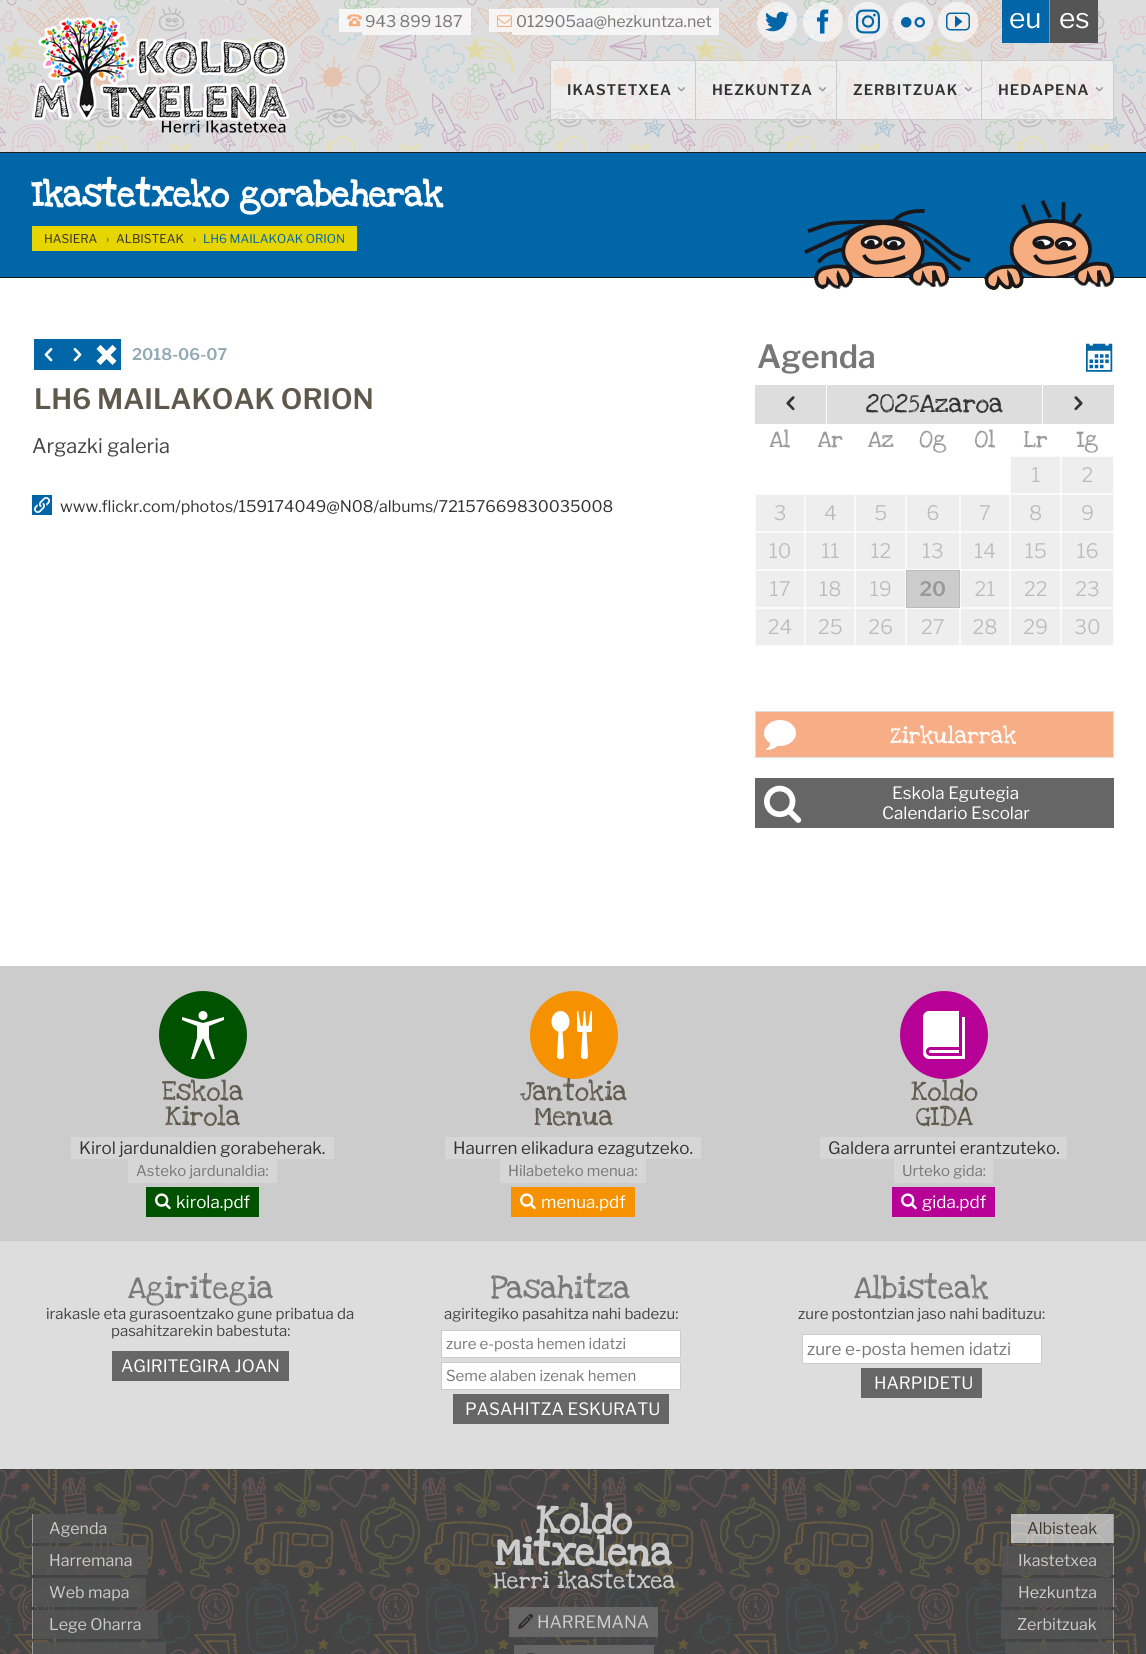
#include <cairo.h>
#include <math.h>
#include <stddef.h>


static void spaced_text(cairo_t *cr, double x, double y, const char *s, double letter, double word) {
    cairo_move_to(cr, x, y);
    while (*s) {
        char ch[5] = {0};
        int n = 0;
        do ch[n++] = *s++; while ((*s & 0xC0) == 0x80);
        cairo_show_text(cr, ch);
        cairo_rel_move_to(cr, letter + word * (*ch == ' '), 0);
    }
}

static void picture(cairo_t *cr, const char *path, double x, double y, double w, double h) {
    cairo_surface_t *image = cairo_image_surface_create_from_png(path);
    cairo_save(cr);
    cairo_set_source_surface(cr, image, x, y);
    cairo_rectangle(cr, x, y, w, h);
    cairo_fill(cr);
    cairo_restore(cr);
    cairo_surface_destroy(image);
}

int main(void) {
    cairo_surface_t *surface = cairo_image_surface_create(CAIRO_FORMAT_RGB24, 1146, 1654);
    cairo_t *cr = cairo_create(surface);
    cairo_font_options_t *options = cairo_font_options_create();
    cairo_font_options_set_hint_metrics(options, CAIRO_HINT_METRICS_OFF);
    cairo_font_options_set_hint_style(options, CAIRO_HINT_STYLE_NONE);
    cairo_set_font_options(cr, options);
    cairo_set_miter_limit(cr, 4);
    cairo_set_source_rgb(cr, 1, 1, 1);
    cairo_paint(cr);
    cairo_set_source_rgb(cr, 0.867, 0.867, 0.867);
    cairo_rectangle(cr, 0, 0, 1146, 152);
    cairo_fill(cr);
    picture(cr, "img1.png", 0, 0, 1146, 152);
    cairo_set_source_rgb(cr, 0.118, 0.11, 0.125);
    cairo_rectangle(cr, 0, 152, 1146, 1);
    cairo_fill(cr);
    cairo_set_source_rgba(cr, 1, 1, 1, 0.75);
    cairo_rectangle(cr, 339, 9, 23, 23);
    cairo_fill(cr);
    cairo_rectangle(cr, 362, 8, 109, 27);
    cairo_fill(cr);
    picture(cr, "img2.png", 347, 14, 15, 13);
    cairo_select_font_face(cr, "Libre Franklin", CAIRO_FONT_SLANT_NORMAL, CAIRO_FONT_WEIGHT_NORMAL);
    cairo_set_font_size(cr, 16);
    cairo_set_source_rgb(cr, 0.467, 0.467, 0.467);
    cairo_move_to(cr, 365, 27);
    cairo_show_text(cr, "943 899 187");
    cairo_set_source_rgba(cr, 1, 1, 1, 0.75);
    cairo_rectangle(cr, 489, 9, 23, 23);
    cairo_fill(cr);
    cairo_rectangle(cr, 512, 8, 207, 27);
    cairo_fill(cr);
    picture(cr, "img3.png", 497, 15, 15, 12);
    cairo_set_source_rgb(cr, 0.467, 0.467, 0.467);
    cairo_move_to(cr, 516, 27);
    cairo_show_text(cr, "012905aa@hezkuntza.net");
    cairo_set_source_rgba(cr, 1, 1, 1, 0.6);
    cairo_new_path(cr);
    cairo_arc(cr, 777, 22, 20, 0, 2 * M_PI);
    cairo_fill(cr);
    picture(cr, "img4.png", 765, 11, 24, 21);
    cairo_arc(cr, 823, 22, 20, 0, 2 * M_PI);
    cairo_fill(cr);
    picture(cr, "img5.png", 817, 9, 12, 25);
    cairo_arc(cr, 868, 22, 20, 0, 2 * M_PI);
    cairo_fill(cr);
    picture(cr, "img6.png", 856, 9, 24, 25);
    cairo_arc(cr, 913, 22, 20, 0, 2 * M_PI);
    cairo_fill(cr);
    picture(cr, "img7.png", 901, 17, 24, 11);
    cairo_arc(cr, 958, 22, 20, 0, 2 * M_PI);
    cairo_fill(cr);
    picture(cr, "img8.png", 946, 12, 24, 19);
    cairo_set_source_rgb(cr, 0, 0.4, 0.659);
    cairo_rectangle(cr, 1002, 0, 47, 43);
    cairo_fill(cr);
    cairo_set_source_rgb(cr, 0.4, 0.639, 0.796);
    cairo_rectangle(cr, 1049, 0, 1, 43);
    cairo_fill(cr);
    cairo_set_font_size(cr, 28);
    cairo_set_source_rgb(cr, 1, 1, 1);
    cairo_move_to(cr, 1009, 28);
    cairo_show_text(cr, "eu");
    cairo_set_source_rgb(cr, 0.333, 0.333, 0.333);
    cairo_rectangle(cr, 1050, 0, 48, 43);
    cairo_fill(cr);
    cairo_set_source_rgb(cr, 1, 1, 1);
    cairo_move_to(cr, 1059, 28);
    cairo_show_text(cr, "es");
    picture(cr, "img9.png", 32, 17, 257, 116);
    cairo_set_source_rgba(cr, 1, 1, 1, 0.5);
    cairo_rectangle(cr, 551, 61, 144, 58);
    cairo_fill(cr);
    cairo_set_source_rgb(cr, 0.8, 0.8, 0.8);
    cairo_rectangle(cr, 550, 60, 431, 1);
    cairo_fill(cr);
    cairo_rectangle(cr, 550, 119, 431, 1);
    cairo_fill(cr);
    cairo_rectangle(cr, 550, 60, 1, 60);
    cairo_fill(cr);
    cairo_select_font_face(cr, "Libre Franklin SemiBold", CAIRO_FONT_SLANT_NORMAL, CAIRO_FONT_WEIGHT_NORMAL);
    cairo_set_font_size(cr, 14.5);
    cairo_set_source_rgb(cr, 0.2, 0.2, 0.2);
    spaced_text(cr, 567, 95, "IKASTETXEA", 1, 0);
    picture(cr, "img10.png", 677, 87, 8, 5);
    cairo_set_source_rgba(cr, 1, 1, 1, 0.5);
    cairo_rectangle(cr, 696, 61, 140, 58);
    cairo_fill(cr);
    cairo_set_source_rgb(cr, 0.8, 0.8, 0.8);
    cairo_rectangle(cr, 695, 60, 1, 60);
    cairo_fill(cr);
    cairo_set_source_rgb(cr, 0.2, 0.2, 0.2);
    spaced_text(cr, 712, 95, "HEZKUNTZA", 1, 0);
    picture(cr, "img11.png", 818, 87, 8, 5);
    cairo_set_source_rgba(cr, 1, 1, 1, 0.5);
    cairo_rectangle(cr, 837, 61, 144, 58);
    cairo_fill(cr);
    cairo_set_source_rgb(cr, 0.8, 0.8, 0.8);
    cairo_rectangle(cr, 836, 60, 1, 60);
    cairo_fill(cr);
    cairo_set_source_rgb(cr, 0.2, 0.2, 0.2);
    spaced_text(cr, 853, 95, "ZERBITZUAK", 1, 0);
    picture(cr, "img12.png", 964, 87, 8, 5);
    cairo_set_source_rgba(cr, 1, 1, 1, 0.5);
    cairo_rectangle(cr, 981.5, 60.5, 132, 59);
    cairo_fill_preserve(cr);
    cairo_set_source_rgb(cr, 0.8, 0.8, 0.8);
    cairo_set_line_width(cr, 1);
    cairo_stroke(cr);
    cairo_set_source_rgb(cr, 0.2, 0.2, 0.2);
    spaced_text(cr, 998, 95, "HEDAPENA", 1, 0);
    picture(cr, "img13.png", 1095, 87, 8, 5);
    cairo_set_source_rgb(cr, 0, 0.4, 0.659);
    cairo_rectangle(cr, 0, 153, 1146, 124);
    cairo_fill(cr);
    picture(cr, "img14.png", 0, 200, 1146, 91);
    cairo_select_font_face(cr, "Love Ya Like A Sister", CAIRO_FONT_SLANT_NORMAL, CAIRO_FONT_WEIGHT_BOLD);
    cairo_set_font_size(cr, 36);
    cairo_set_source_rgb(cr, 1, 1, 1);
    cairo_move_to(cr, 32, 206);
    cairo_show_text(cr, "Ikastetxeko gorabeherak");
    cairo_set_source_rgb(cr, 0.902, 0.835, 0);
    cairo_rectangle(cr, 32, 226, 325, 25);
    cairo_fill(cr);
    cairo_select_font_face(cr, "Libre Franklin", CAIRO_FONT_SLANT_NORMAL, CAIRO_FONT_WEIGHT_NORMAL);
    cairo_set_font_size(cr, 12);
    cairo_set_source_rgb(cr, 0.2, 0.2, 0.2);
    cairo_move_to(cr, 44, 243);
    cairo_show_text(cr, "HASIERA");
    cairo_set_source_rgb(cr, 0.267, 0.267, 0.267);
    cairo_move_to(cr, 106, 243);
    cairo_show_text(cr, "›");
    cairo_set_source_rgb(cr, 0.2, 0.2, 0.2);
    cairo_move_to(cr, 116, 243);
    cairo_show_text(cr, "ALBISTEAK");
    cairo_set_source_rgb(cr, 0.267, 0.267, 0.267);
    cairo_move_to(cr, 193, 243);
    cairo_show_text(cr, "›");
    cairo_set_source_rgb(cr, 0, 0.4, 0.659);
    cairo_move_to(cr, 203, 243);
    cairo_show_text(cr, "LH6 MAILAKOAK ORION");
    cairo_rectangle(cr, 34, 339, 87, 31);
    cairo_fill(cr);
    picture(cr, "img15.png", 44, 348, 9, 14);
    picture(cr, "img16.png", 73, 348, 9, 14);
    picture(cr, "img17.png", 96, 345, 21, 20);
    cairo_select_font_face(cr, "Libre Franklin SemiBold", CAIRO_FONT_SLANT_NORMAL, CAIRO_FONT_WEIGHT_NORMAL);
    cairo_set_font_size(cr, 16);
    cairo_set_source_rgb(cr, 0.569, 0.659, 0.702);
    cairo_move_to(cr, 132, 360);
    cairo_show_text(cr, "2018-06-07");
    cairo_set_font_size(cr, 28);
    cairo_set_source_rgb(cr, 0.373, 0.349, 0.302);
    cairo_move_to(cr, 34, 409);
    cairo_show_text(cr, "LH6 MAILAKOAK ORION");
    cairo_select_font_face(cr, "Libre Franklin", CAIRO_FONT_SLANT_NORMAL, CAIRO_FONT_WEIGHT_NORMAL);
    cairo_set_font_size(cr, 20);
    cairo_set_source_rgb(cr, 0.267, 0.267, 0.267);
    cairo_move_to(cr, 32, 453);
    cairo_show_text(cr, "Argazki galeria");
    cairo_set_source_rgb(cr, 0, 0.4, 0.659);
    cairo_rectangle(cr, 32, 495, 20, 20);
    cairo_fill(cr);
    picture(cr, "img18.png", 34, 497, 16, 16);
    cairo_set_font_size(cr, 16);
    cairo_set_source_rgb(cr, 0.2, 0.2, 0.2);
    cairo_move_to(cr, 60, 512);
    cairo_show_text(cr, "www.flickr.com/photos/159174049@N08/albums/72157669830035008");
    cairo_select_font_face(cr, "Libre Franklin SemiBold", CAIRO_FONT_SLANT_NORMAL, CAIRO_FONT_WEIGHT_NORMAL);
    cairo_set_font_size(cr, 32);
    cairo_set_source_rgb(cr, 0.467, 0.467, 0.467);
    cairo_move_to(cr, 757, 368);
    cairo_show_text(cr, "Agenda");
    picture(cr, "img19.png", 1086, 343, 27, 29);
    picture(cr, "img20.png", 755, 385, 359, 261);
    cairo_set_source_rgb(cr, 0.965, 0.682, 0.525);
    cairo_rectangle(cr, 755.5, 711.5, 358, 46);
    cairo_fill_preserve(cr);
    cairo_set_source_rgb(cr, 0.867, 0.867, 0.867);
    cairo_stroke(cr);
    picture(cr, "img21.png", 764, 720, 32, 30);
    cairo_select_font_face(cr, "Love Ya Like A Sister", CAIRO_FONT_SLANT_NORMAL, CAIRO_FONT_WEIGHT_NORMAL);
    cairo_set_font_size(cr, 24);
    cairo_set_source_rgb(cr, 1, 1, 1);
    cairo_move_to(cr, 890, 743);
    cairo_show_text(cr, "Zirkularrak");
    cairo_set_source_rgb(cr, 0.4, 0.4, 0.4);
    cairo_rectangle(cr, 755, 778, 359, 50);
    cairo_fill(cr);
    picture(cr, "img22.png", 764, 785, 38, 38);
    cairo_select_font_face(cr, "Libre Franklin", CAIRO_FONT_SLANT_NORMAL, CAIRO_FONT_WEIGHT_NORMAL);
    cairo_set_font_size(cr, 17);
    cairo_set_source_rgb(cr, 1, 1, 1);
    cairo_move_to(cr, 892, 799);
    cairo_show_text(cr, "Eskola Egutegia");
    cairo_move_to(cr, 882, 819);
    cairo_show_text(cr, "Calendario Escolar");
    cairo_set_source_rgb(cr, 0.8, 0.8, 0.8);
    cairo_rectangle(cr, 0, 966, 1146, 275);
    cairo_fill(cr);
    cairo_set_source_rgb(cr, 0, 0.322, 0);
    cairo_arc(cr, 203, 1035, 44, 0, 2 * M_PI);
    cairo_fill(cr);
    picture(cr, "img23.png", 182, 1011, 42, 48);
    cairo_select_font_face(cr, "Love Ya Like A Sister", CAIRO_FONT_SLANT_NORMAL, CAIRO_FONT_WEIGHT_NORMAL);
    cairo_set_font_size(cr, 28);
    cairo_set_source_rgb(cr, 0.373, 0.349, 0.302);
    cairo_move_to(cr, 162, 1100);
    cairo_show_text(cr, "Eskola");
    cairo_move_to(cr, 165, 1125);
    cairo_show_text(cr, "Kirola");
    cairo_set_source_rgb(cr, 0.839, 0.839, 0.839);
    cairo_rectangle(cr, 71, 1137, 263, 22);
    cairo_fill(cr);
    cairo_select_font_face(cr, "Libre Franklin", CAIRO_FONT_SLANT_NORMAL, CAIRO_FONT_WEIGHT_NORMAL);
    cairo_set_font_size(cr, 17);
    cairo_set_source_rgb(cr, 0.2, 0.2, 0.2);
    cairo_move_to(cr, 79, 1154);
    cairo_show_text(cr, "Kirol jardunaldien gorabeherak.");
    cairo_set_source_rgb(cr, 0.839, 0.839, 0.839);
    cairo_rectangle(cr, 128, 1159, 149, 24);
    cairo_fill(cr);
    cairo_set_font_size(cr, 14.9);
    cairo_set_source_rgb(cr, 0.467, 0.467, 0.467);
    cairo_move_to(cr, 136, 1176);
    cairo_show_text(cr, "Asteko jardunaldia:");
    cairo_set_source_rgb(cr, 0, 0.322, 0);
    cairo_rectangle(cr, 146, 1187, 113, 30);
    cairo_fill(cr);
    picture(cr, "img24.png", 155, 1193, 16, 17);
    cairo_set_font_size(cr, 17);
    cairo_set_source_rgb(cr, 1, 1, 1);
    cairo_move_to(cr, 176, 1208);
    cairo_show_text(cr, "kirola.pdf");
    cairo_set_source_rgb(cr, 0.961, 0.573, 0);
    cairo_new_path(cr);
    cairo_arc(cr, 574, 1035, 44, 0, 2 * M_PI);
    cairo_fill(cr);
    picture(cr, "img25.png", 551, 1011, 41, 48);
    cairo_select_font_face(cr, "Love Ya Like A Sister", CAIRO_FONT_SLANT_NORMAL, CAIRO_FONT_WEIGHT_NORMAL);
    cairo_set_font_size(cr, 28);
    cairo_set_source_rgb(cr, 0.373, 0.349, 0.302);
    cairo_move_to(cr, 520, 1100);
    cairo_show_text(cr, "Jantokia");
    cairo_move_to(cr, 534, 1125);
    cairo_show_text(cr, "Menua");
    cairo_set_source_rgb(cr, 0.839, 0.839, 0.839);
    cairo_rectangle(cr, 445, 1137, 256, 22);
    cairo_fill(cr);
    cairo_select_font_face(cr, "Libre Franklin", CAIRO_FONT_SLANT_NORMAL, CAIRO_FONT_WEIGHT_NORMAL);
    cairo_set_font_size(cr, 17);
    cairo_set_source_rgb(cr, 0.2, 0.2, 0.2);
    cairo_move_to(cr, 453, 1154);
    cairo_show_text(cr, "Haurren elikadura ezagutzeko.");
    cairo_set_source_rgb(cr, 0.839, 0.839, 0.839);
    cairo_rectangle(cr, 500, 1159, 146, 24);
    cairo_fill(cr);
    cairo_set_font_size(cr, 14.9);
    cairo_set_source_rgb(cr, 0.467, 0.467, 0.467);
    cairo_move_to(cr, 508, 1176);
    cairo_show_text(cr, "Hilabeteko menua:");
    cairo_set_source_rgb(cr, 0.961, 0.573, 0);
    cairo_rectangle(cr, 511, 1187, 124, 30);
    cairo_fill(cr);
    picture(cr, "img26.png", 520, 1193, 16, 17);
    cairo_set_font_size(cr, 17);
    cairo_set_source_rgb(cr, 1, 1, 1);
    cairo_move_to(cr, 541, 1208);
    cairo_show_text(cr, "menua.pdf");
    cairo_set_source_rgb(cr, 0.718, 0, 0.584);
    cairo_new_path(cr);
    cairo_arc(cr, 944, 1035, 44, 0, 2 * M_PI);
    cairo_fill(cr);
    picture(cr, "img27.png", 923, 1011, 42, 48);
    cairo_select_font_face(cr, "Love Ya Like A Sister", CAIRO_FONT_SLANT_NORMAL, CAIRO_FONT_WEIGHT_NORMAL);
    cairo_set_font_size(cr, 28);
    cairo_set_source_rgb(cr, 0.373, 0.349, 0.302);
    cairo_move_to(cr, 911, 1100);
    cairo_show_text(cr, "Koldo");
    cairo_move_to(cr, 916, 1125);
    cairo_show_text(cr, "GIDA");
    cairo_set_source_rgb(cr, 0.839, 0.839, 0.839);
    cairo_rectangle(cr, 820, 1137, 247, 22);
    cairo_fill(cr);
    cairo_select_font_face(cr, "Libre Franklin", CAIRO_FONT_SLANT_NORMAL, CAIRO_FONT_WEIGHT_NORMAL);
    cairo_set_font_size(cr, 17);
    cairo_set_source_rgb(cr, 0.2, 0.2, 0.2);
    cairo_move_to(cr, 828, 1154);
    cairo_show_text(cr, "Galdera arruntei erantzuteko.");
    cairo_set_source_rgb(cr, 0.839, 0.839, 0.839);
    cairo_rectangle(cr, 894, 1159, 99, 24);
    cairo_fill(cr);
    cairo_set_font_size(cr, 14.9);
    cairo_set_source_rgb(cr, 0.467, 0.467, 0.467);
    cairo_move_to(cr, 902, 1176);
    cairo_show_text(cr, "Urteko gida:");
    cairo_set_source_rgb(cr, 0.718, 0, 0.584);
    cairo_rectangle(cr, 892, 1187, 103, 30);
    cairo_fill(cr);
    picture(cr, "img28.png", 901, 1193, 16, 17);
    cairo_set_font_size(cr, 17);
    cairo_set_source_rgb(cr, 1, 1, 1);
    cairo_move_to(cr, 922, 1208);
    cairo_show_text(cr, "gida.pdf");
    cairo_set_source_rgb(cr, 0.867, 0.867, 0.867);
    cairo_rectangle(cr, 0, 1241, 1146, 228);
    cairo_fill(cr);
    cairo_select_font_face(cr, "Love Ya Like A Sister", CAIRO_FONT_SLANT_NORMAL, CAIRO_FONT_WEIGHT_NORMAL);
    cairo_set_font_size(cr, 32);
    cairo_set_source_rgb(cr, 0.467, 0.467, 0.467);
    cairo_move_to(cr, 128, 1298);
    cairo_show_text(cr, "Agiritegia");
    cairo_select_font_face(cr, "Libre Franklin", CAIRO_FONT_SLANT_NORMAL, CAIRO_FONT_WEIGHT_NORMAL);
    cairo_set_font_size(cr, 15);
    cairo_set_source_rgb(cr, 0.267, 0.267, 0.267);
    cairo_move_to(cr, 46, 1319);
    cairo_show_text(cr, "irakasle eta gurasoentzako gune pribatua da");
    cairo_move_to(cr, 111, 1336);
    cairo_show_text(cr, "pasahitzarekin babestuta:");
    cairo_set_source_rgb(cr, 0.4, 0.4, 0.4);
    cairo_rectangle(cr, 112, 1351, 177, 30);
    cairo_fill(cr);
    cairo_set_font_size(cr, 17);
    cairo_set_source_rgb(cr, 1, 1, 1);
    cairo_move_to(cr, 121, 1372);
    cairo_show_text(cr, "AGIRITEGIRA JOAN");
    cairo_select_font_face(cr, "Love Ya Like A Sister", CAIRO_FONT_SLANT_NORMAL, CAIRO_FONT_WEIGHT_NORMAL);
    cairo_set_font_size(cr, 32);
    cairo_set_source_rgb(cr, 0.467, 0.467, 0.467);
    cairo_move_to(cr, 491, 1298);
    cairo_show_text(cr, "Pasahitza");
    cairo_select_font_face(cr, "Libre Franklin", CAIRO_FONT_SLANT_NORMAL, CAIRO_FONT_WEIGHT_NORMAL);
    cairo_set_font_size(cr, 15);
    cairo_set_source_rgb(cr, 0.267, 0.267, 0.267);
    cairo_move_to(cr, 444, 1319);
    cairo_show_text(cr, "agiritegiko pasahitza nahi badezu:");
    cairo_set_source_rgb(cr, 1, 1, 1);
    cairo_rectangle(cr, 441.5, 1330.5, 239, 27);
    cairo_fill_preserve(cr);
    cairo_set_source_rgb(cr, 0.8, 0.8, 0.8);
    cairo_stroke(cr);
    cairo_set_source_rgb(cr, 0.467, 0.467, 0.467);
    cairo_move_to(cr, 446, 1349);
    cairo_show_text(cr, "zure e-posta hemen idatzi");
    cairo_set_source_rgb(cr, 1, 1, 1);
    cairo_rectangle(cr, 441.5, 1362.5, 239, 27);
    cairo_fill_preserve(cr);
    cairo_set_source_rgb(cr, 0.8, 0.8, 0.8);
    cairo_stroke(cr);
    cairo_set_source_rgb(cr, 0.467, 0.467, 0.467);
    cairo_move_to(cr, 446, 1381);
    cairo_show_text(cr, "Seme alaben izenak hemen");
    cairo_set_source_rgb(cr, 0.4, 0.4, 0.4);
    cairo_rectangle(cr, 453, 1394, 216, 30);
    cairo_fill(cr);
    cairo_set_font_size(cr, 17);
    cairo_set_source_rgb(cr, 1, 1, 1);
    cairo_move_to(cr, 465, 1415);
    cairo_show_text(cr, "PASAHITZA ESKURATU");
    cairo_select_font_face(cr, "Love Ya Like A Sister", CAIRO_FONT_SLANT_NORMAL, CAIRO_FONT_WEIGHT_NORMAL);
    cairo_set_font_size(cr, 32);
    cairo_set_source_rgb(cr, 0.467, 0.467, 0.467);
    cairo_move_to(cr, 854, 1298);
    cairo_show_text(cr, "Albisteak");
    cairo_select_font_face(cr, "Libre Franklin", CAIRO_FONT_SLANT_NORMAL, CAIRO_FONT_WEIGHT_NORMAL);
    cairo_set_font_size(cr, 15);
    cairo_set_source_rgb(cr, 0.267, 0.267, 0.267);
    cairo_move_to(cr, 798, 1319);
    cairo_show_text(cr, "zure postontzian jaso nahi badituzu:");
    cairo_set_source_rgb(cr, 1, 1, 1);
    cairo_rectangle(cr, 802.5, 1334.5, 239, 29);
    cairo_fill_preserve(cr);
    cairo_set_source_rgb(cr, 0.8, 0.8, 0.8);
    cairo_stroke(cr);
    cairo_set_font_size(cr, 17);
    cairo_set_source_rgb(cr, 0.467, 0.467, 0.467);
    cairo_move_to(cr, 807, 1355);
    cairo_show_text(cr, "zure e-posta hemen idatzi");
    cairo_set_source_rgb(cr, 0.4, 0.4, 0.4);
    cairo_rectangle(cr, 861, 1368, 121, 30);
    cairo_fill(cr);
    cairo_set_source_rgb(cr, 1, 1, 1);
    cairo_move_to(cr, 874, 1389);
    cairo_show_text(cr, "HARPIDETU");
    cairo_set_source_rgb(cr, 0.267, 0.267, 0.267);
    cairo_rectangle(cr, 0, 1469, 1146, 185);
    cairo_fill(cr);
    picture(cr, "img29.png", 0, 1469, 1146, 185);
    cairo_set_source_rgba(cr, 0.333, 0.333, 0.333, 0.85);
    cairo_rectangle(cr, 33, 1514, 90, 29);
    cairo_fill(cr);
    cairo_set_font_size(cr, 16);
    cairo_set_source_rgb(cr, 0.8, 0.8, 0.8);
    cairo_move_to(cr, 49, 1534);
    cairo_show_text(cr, "Agenda");
    cairo_set_source_rgb(cr, 0.6, 0.6, 0.6);
    cairo_rectangle(cr, 32, 1514, 1, 29);
    cairo_fill(cr);
    cairo_set_source_rgba(cr, 0.333, 0.333, 0.333, 0.85);
    cairo_rectangle(cr, 33, 1546, 115, 29);
    cairo_fill(cr);
    cairo_set_source_rgb(cr, 0.8, 0.8, 0.8);
    cairo_move_to(cr, 49, 1566);
    cairo_show_text(cr, "Harremana");
    cairo_set_source_rgb(cr, 0.6, 0.6, 0.6);
    cairo_rectangle(cr, 32, 1546, 1, 29);
    cairo_fill(cr);
    cairo_set_source_rgba(cr, 0.333, 0.333, 0.333, 0.85);
    cairo_rectangle(cr, 33, 1578, 113, 29);
    cairo_fill(cr);
    cairo_set_source_rgb(cr, 0.8, 0.8, 0.8);
    cairo_move_to(cr, 49, 1598);
    cairo_show_text(cr, "Web mapa");
    cairo_set_source_rgb(cr, 0.6, 0.6, 0.6);
    cairo_rectangle(cr, 32, 1578, 1, 29);
    cairo_fill(cr);
    cairo_set_source_rgba(cr, 0.333, 0.333, 0.333, 0.85);
    cairo_rectangle(cr, 33, 1610, 125, 29);
    cairo_fill(cr);
    cairo_set_source_rgb(cr, 0.8, 0.8, 0.8);
    cairo_move_to(cr, 49, 1630);
    cairo_show_text(cr, "Lege Oharra");
    cairo_set_source_rgb(cr, 0.6, 0.6, 0.6);
    cairo_rectangle(cr, 32, 1610, 1, 29);
    cairo_fill(cr);
    cairo_rectangle(cr, 32, 1642, 1, 12);
    cairo_fill(cr);
    cairo_set_source_rgba(cr, 0.333, 0.333, 0.333, 0.85);
    cairo_rectangle(cr, 33, 1642, 133, 12);
    cairo_fill(cr);
    cairo_select_font_face(cr, "Love Ya Like A Sister", CAIRO_FONT_SLANT_NORMAL, CAIRO_FONT_WEIGHT_BOLD);
    cairo_set_font_size(cr, 40);
    cairo_set_source_rgb(cr, 0.8, 0.8, 0.8);
    cairo_move_to(cr, 536, 1533);
    cairo_show_text(cr, "Koldo");
    cairo_move_to(cr, 495, 1565);
    cairo_show_text(cr, "Mitxelena");
    cairo_select_font_face(cr, "Love Ya Like A Sister", CAIRO_FONT_SLANT_NORMAL, CAIRO_FONT_WEIGHT_NORMAL);
    cairo_set_font_size(cr, 24);
    cairo_move_to(cr, 493, 1588);
    cairo_show_text(cr, "Herri ikastetxea");
    cairo_set_source_rgb(cr, 0.4, 0.4, 0.4);
    cairo_rectangle(cr, 509, 1607, 149, 30);
    cairo_fill(cr);
    picture(cr, "img30.png", 518, 1614, 15, 15);
    cairo_select_font_face(cr, "Libre Franklin", CAIRO_FONT_SLANT_NORMAL, CAIRO_FONT_WEIGHT_NORMAL);
    cairo_set_font_size(cr, 17);
    cairo_set_source_rgb(cr, 0.8, 0.8, 0.8);
    cairo_move_to(cr, 537, 1628);
    cairo_show_text(cr, "HARREMANA");
    cairo_set_source_rgb(cr, 0.4, 0.4, 0.4);
    cairo_rectangle(cr, 514, 1645, 140, 9);
    cairo_fill(cr);
    picture(cr, "img31.png", 526, 1653, 9, 1);
    cairo_set_source_rgba(cr, 1, 1, 1, 0.6);
    cairo_rectangle(cr, 1011, 1514, 102, 29);
    cairo_fill(cr);
    cairo_set_font_size(cr, 16);
    cairo_set_source_rgb(cr, 0.247, 0.231, 0.2);
    cairo_move_to(cr, 1027, 1534);
    cairo_show_text(cr, "Albisteak");
    cairo_set_source_rgb(cr, 0.6, 0.6, 0.6);
    cairo_rectangle(cr, 1113, 1514, 1, 29);
    cairo_fill(cr);
    cairo_set_source_rgba(cr, 0.333, 0.333, 0.333, 0.85);
    cairo_rectangle(cr, 1002, 1546, 111, 29);
    cairo_fill(cr);
    cairo_set_source_rgb(cr, 0.8, 0.8, 0.8);
    cairo_move_to(cr, 1018, 1566);
    cairo_show_text(cr, "Ikastetxea");
    cairo_set_source_rgb(cr, 0.6, 0.6, 0.6);
    cairo_rectangle(cr, 1113, 1546, 1, 29);
    cairo_fill(cr);
    cairo_set_source_rgba(cr, 0.333, 0.333, 0.333, 0.85);
    cairo_rectangle(cr, 1002, 1578, 111, 29);
    cairo_fill(cr);
    cairo_set_source_rgb(cr, 0.8, 0.8, 0.8);
    cairo_move_to(cr, 1018, 1598);
    cairo_show_text(cr, "Hezkuntza");
    cairo_set_source_rgb(cr, 0.6, 0.6, 0.6);
    cairo_rectangle(cr, 1113, 1578, 1, 29);
    cairo_fill(cr);
    cairo_set_source_rgba(cr, 0.333, 0.333, 0.333, 0.85);
    cairo_rectangle(cr, 1001, 1610, 112, 29);
    cairo_fill(cr);
    cairo_set_source_rgb(cr, 0.8, 0.8, 0.8);
    cairo_move_to(cr, 1017, 1630);
    cairo_show_text(cr, "Zerbitzuak");
    cairo_set_source_rgb(cr, 0.6, 0.6, 0.6);
    cairo_rectangle(cr, 1113, 1610, 1, 29);
    cairo_fill(cr);
    cairo_set_source_rgba(cr, 0.333, 0.333, 0.333, 0.85);
    cairo_rectangle(cr, 1005, 1642, 108, 12);
    cairo_fill(cr);
    cairo_set_source_rgb(cr, 0.6, 0.6, 0.6);
    cairo_rectangle(cr, 1113, 1642, 1, 12);
    cairo_fill(cr);
    cairo_surface_write_to_png(surface, "page.png");
    cairo_font_options_destroy(options);
    cairo_destroy(cr);
    cairo_surface_destroy(surface);
    return 0;
}
